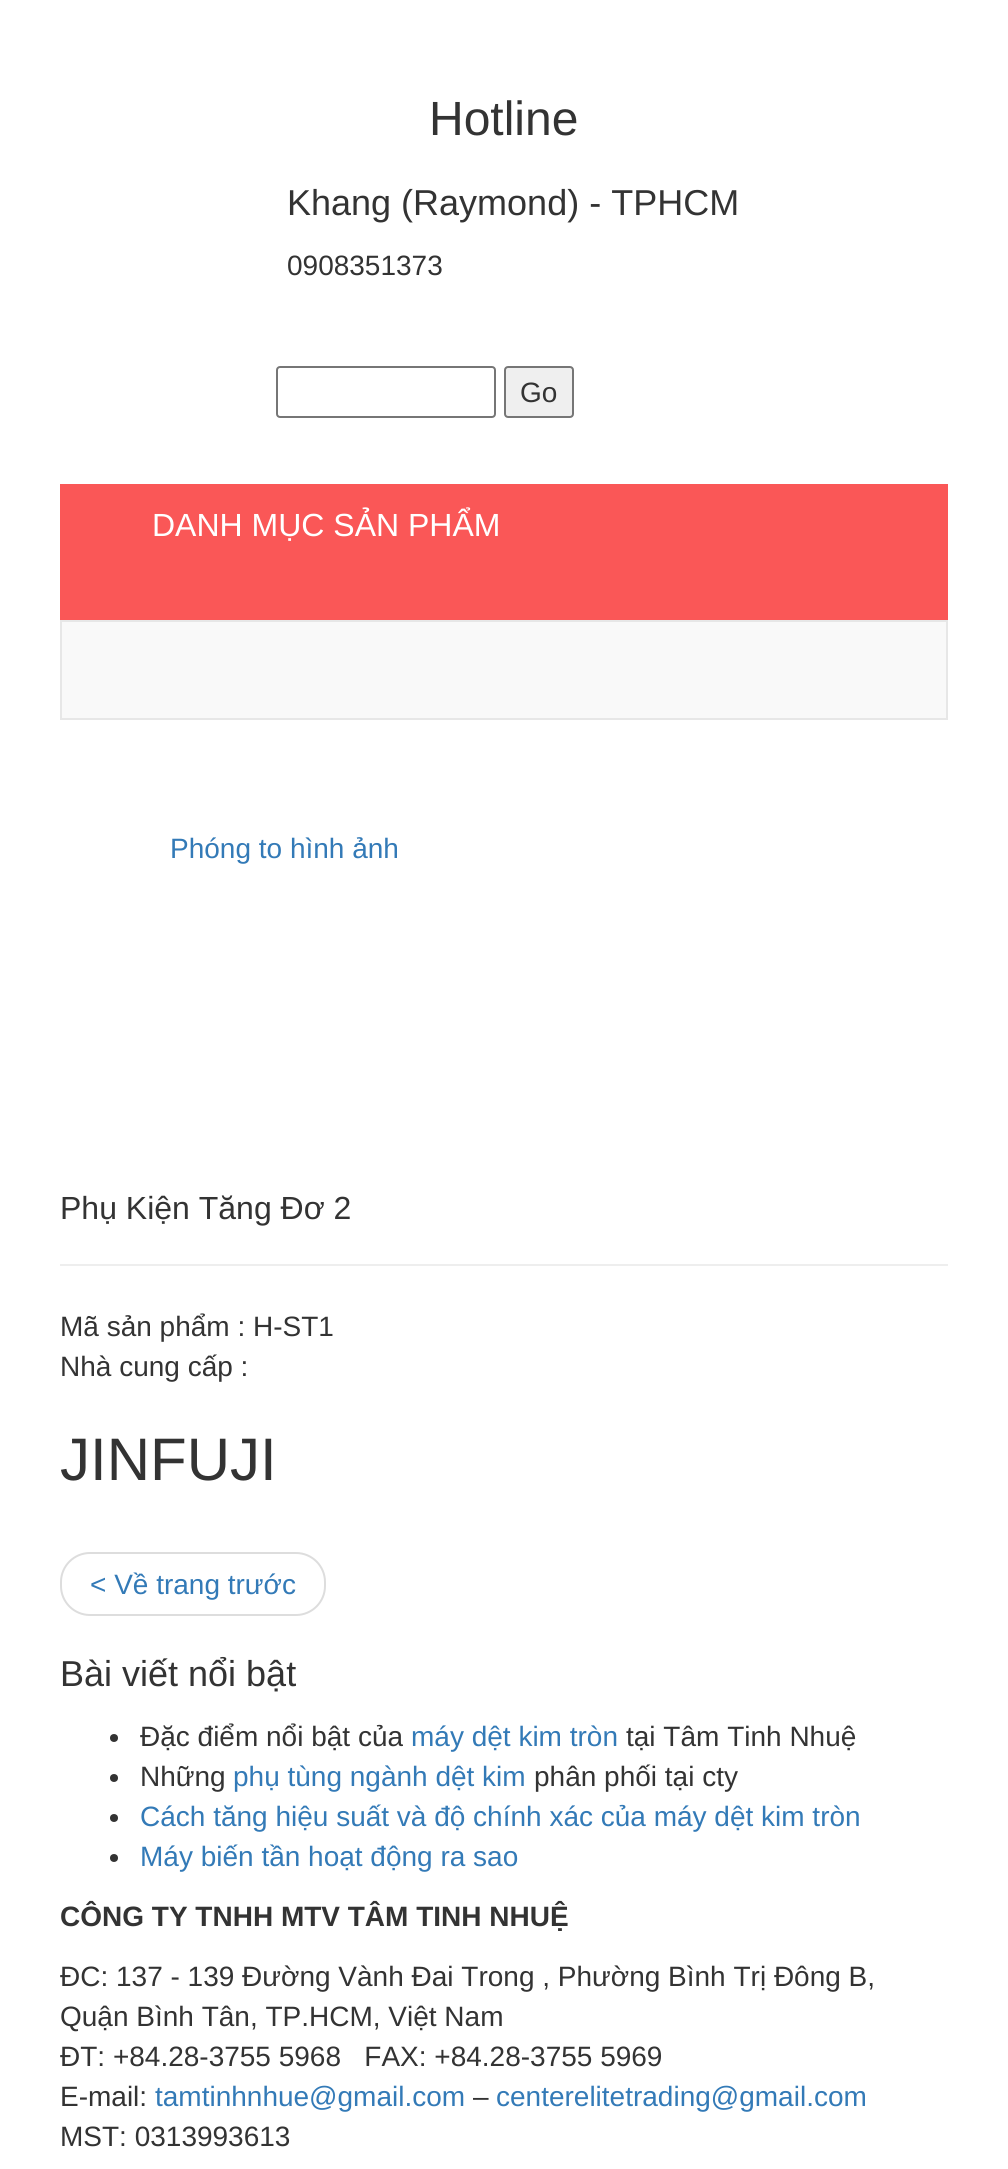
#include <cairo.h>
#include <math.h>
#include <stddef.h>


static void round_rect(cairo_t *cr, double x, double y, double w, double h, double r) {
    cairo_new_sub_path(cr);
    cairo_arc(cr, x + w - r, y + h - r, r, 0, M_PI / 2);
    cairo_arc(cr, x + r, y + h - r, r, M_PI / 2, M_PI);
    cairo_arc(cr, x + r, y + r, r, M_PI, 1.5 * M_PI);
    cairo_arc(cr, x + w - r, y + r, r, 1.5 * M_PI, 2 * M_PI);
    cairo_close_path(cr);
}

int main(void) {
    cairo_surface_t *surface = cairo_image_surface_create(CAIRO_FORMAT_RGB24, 1008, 2169);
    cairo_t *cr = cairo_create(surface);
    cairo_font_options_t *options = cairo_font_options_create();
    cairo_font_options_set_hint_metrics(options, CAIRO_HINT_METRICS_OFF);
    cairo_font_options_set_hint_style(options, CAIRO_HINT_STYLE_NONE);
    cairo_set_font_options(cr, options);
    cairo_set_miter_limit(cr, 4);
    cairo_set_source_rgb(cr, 1, 1, 1);
    cairo_paint(cr);
    cairo_select_font_face(cr, "Liberation Sans", CAIRO_FONT_SLANT_NORMAL, CAIRO_FONT_WEIGHT_NORMAL);
    cairo_set_font_size(cr, 48);
    cairo_set_source_rgb(cr, 0.2, 0.2, 0.2);
    cairo_move_to(cr, 429, 135);
    cairo_show_text(cr, "Hotline");
    cairo_set_font_size(cr, 36);
    cairo_move_to(cr, 287, 215);
    cairo_show_text(cr, "Khang (Raymond) - TPHCM");
    cairo_set_font_size(cr, 28);
    cairo_move_to(cr, 287, 275);
    cairo_show_text(cr, "0908351373");
    round_rect(cr, 277, 367, 218, 50, 3);
    cairo_set_source_rgb(cr, 0.463, 0.463, 0.463);
    cairo_stroke(cr);
    cairo_set_source_rgb(cr, 0.937, 0.937, 0.937);
    round_rect(cr, 505, 367, 68, 50, 3);
    cairo_fill_preserve(cr);
    cairo_set_source_rgb(cr, 0.463, 0.463, 0.463);
    cairo_stroke(cr);
    cairo_set_source_rgb(cr, 0.2, 0.2, 0.2);
    cairo_move_to(cr, 520, 402);
    cairo_show_text(cr, "Go");
    cairo_set_source_rgb(cr, 0.98, 0.341, 0.341);
    cairo_rectangle(cr, 60, 484, 888, 136);
    cairo_fill(cr);
    cairo_set_font_size(cr, 32);
    cairo_set_source_rgb(cr, 1, 1, 1);
    cairo_move_to(cr, 152, 536);
    cairo_show_text(cr, "DANH MỤC SẢN PHẨM");
    cairo_set_source_rgb(cr, 0.973, 0.973, 0.973);
    cairo_rectangle(cr, 61, 621, 886, 98);
    cairo_fill_preserve(cr);
    cairo_set_source_rgb(cr, 0.906, 0.906, 0.906);
    cairo_stroke(cr);
    cairo_set_font_size(cr, 28);
    cairo_set_source_rgb(cr, 0.2, 0.478, 0.718);
    cairo_move_to(cr, 170, 858);
    cairo_show_text(cr, "Phóng to hình ảnh");
    cairo_set_source_rgb(cr, 0.933, 0.933, 0.933);
    cairo_rectangle(cr, 60, 1264, 888, 2);
    cairo_fill(cr);
    cairo_set_font_size(cr, 32);
    cairo_set_source_rgb(cr, 0.2, 0.2, 0.2);
    cairo_move_to(cr, 60, 1219);
    cairo_show_text(cr, "Phụ Kiện Tăng Đơ 2");
    cairo_set_font_size(cr, 28);
    cairo_move_to(cr, 60, 1336);
    cairo_show_text(cr, "Mã sản phẩm : H-ST1");
    cairo_move_to(cr, 60, 1376);
    cairo_show_text(cr, "Nhà cung cấp :");
    cairo_set_font_size(cr, 60);
    cairo_move_to(cr, 60, 1480);
    cairo_show_text(cr, "JINFUJI");
    round_rect(cr, 61, 1553, 264, 62, 29);
    cairo_set_source_rgb(cr, 0.867, 0.867, 0.867);
    cairo_stroke(cr);
    cairo_set_font_size(cr, 28);
    cairo_set_source_rgb(cr, 0.2, 0.478, 0.718);
    cairo_move_to(cr, 90, 1594);
    cairo_show_text(cr, "< Về trang trước");
    cairo_set_font_size(cr, 36);
    cairo_set_source_rgb(cr, 0.2, 0.2, 0.2);
    cairo_move_to(cr, 60, 1686);
    cairo_show_text(cr, "Bài viết nổi bật");
    cairo_new_path(cr);
    cairo_arc(cr, 114, 1738, 4, 0, 2 * M_PI);
    cairo_fill(cr);
    cairo_set_font_size(cr, 28);
    cairo_move_to(cr, 140, 1746);
    cairo_show_text(cr, "Đặc điểm nổi bật của");
    cairo_set_source_rgb(cr, 0.2, 0.478, 0.718);
    cairo_move_to(cr, 411, 1746);
    cairo_show_text(cr, "máy dệt kim tròn");
    cairo_set_source_rgb(cr, 0.2, 0.2, 0.2);
    cairo_move_to(cr, 626, 1746);
    cairo_show_text(cr, "tại Tâm Tinh Nhuệ");
    cairo_new_path(cr);
    cairo_arc(cr, 114, 1778, 4, 0, 2 * M_PI);
    cairo_fill(cr);
    cairo_move_to(cr, 140, 1786);
    cairo_show_text(cr, "Những");
    cairo_set_source_rgb(cr, 0.2, 0.478, 0.718);
    cairo_move_to(cr, 233, 1786);
    cairo_show_text(cr, "phụ tùng ngành dệt kim");
    cairo_set_source_rgb(cr, 0.2, 0.2, 0.2);
    cairo_move_to(cr, 534, 1786);
    cairo_show_text(cr, "phân phối tại cty");
    cairo_new_path(cr);
    cairo_arc(cr, 114, 1818, 4, 0, 2 * M_PI);
    cairo_fill(cr);
    cairo_set_source_rgb(cr, 0.2, 0.478, 0.718);
    cairo_move_to(cr, 140, 1826);
    cairo_show_text(cr, "Cách tăng hiệu suất và độ chính xác của máy dệt kim tròn");
    cairo_set_source_rgb(cr, 0.2, 0.2, 0.2);
    cairo_new_path(cr);
    cairo_arc(cr, 114, 1858, 4, 0, 2 * M_PI);
    cairo_fill(cr);
    cairo_set_source_rgb(cr, 0.2, 0.478, 0.718);
    cairo_move_to(cr, 140, 1866);
    cairo_show_text(cr, "Máy biến tần hoạt động ra sao");
    cairo_select_font_face(cr, "Liberation Sans", CAIRO_FONT_SLANT_NORMAL, CAIRO_FONT_WEIGHT_BOLD);
    cairo_set_source_rgb(cr, 0.2, 0.2, 0.2);
    cairo_move_to(cr, 60, 1926);
    cairo_show_text(cr, "CÔNG TY TNHH MTV TÂM TINH NHUỆ");
    cairo_select_font_face(cr, "Liberation Sans", CAIRO_FONT_SLANT_NORMAL, CAIRO_FONT_WEIGHT_NORMAL);
    cairo_move_to(cr, 60, 1986);
    cairo_show_text(cr, "ĐC: 137 - 139 Đường Vành Đai Trong , Phường Bình Trị Đông B,");
    cairo_move_to(cr, 60, 2026);
    cairo_show_text(cr, "Quận Bình Tân, TP.HCM, Việt Nam");
    cairo_move_to(cr, 60, 2066);
    cairo_show_text(cr, "ĐT: +84.28-3755 5968   FAX: +84.28-3755 5969");
    cairo_move_to(cr, 60, 2106);
    cairo_show_text(cr, "E-mail:");
    cairo_set_source_rgb(cr, 0.2, 0.478, 0.718);
    cairo_move_to(cr, 155, 2106);
    cairo_show_text(cr, "tamtinhnhue@gmail.com");
    cairo_set_source_rgb(cr, 0.2, 0.2, 0.2);
    cairo_move_to(cr, 473, 2106);
    cairo_show_text(cr, "–");
    cairo_set_source_rgb(cr, 0.2, 0.478, 0.718);
    cairo_move_to(cr, 496, 2106);
    cairo_show_text(cr, "centerelitetrading@gmail.com");
    cairo_set_source_rgb(cr, 0.2, 0.2, 0.2);
    cairo_move_to(cr, 60, 2146);
    cairo_show_text(cr, "MST: 0313993613");
    cairo_surface_write_to_png(surface, "page.png");
    cairo_font_options_destroy(options);
    cairo_destroy(cr);
    cairo_surface_destroy(surface);
    return 0;
}
